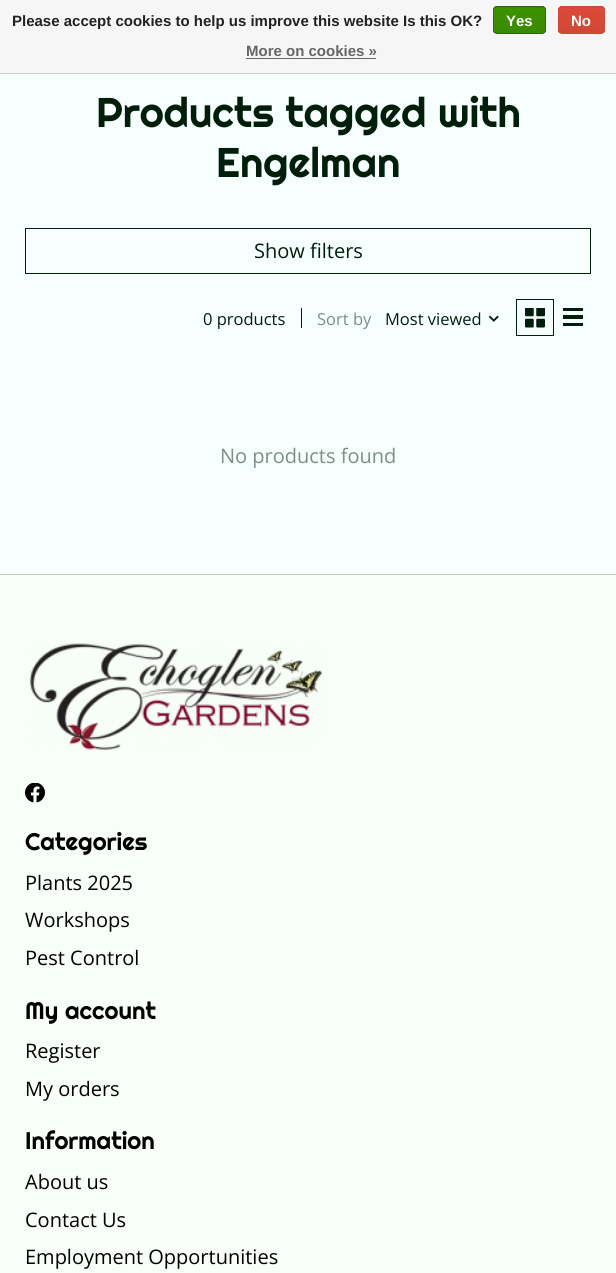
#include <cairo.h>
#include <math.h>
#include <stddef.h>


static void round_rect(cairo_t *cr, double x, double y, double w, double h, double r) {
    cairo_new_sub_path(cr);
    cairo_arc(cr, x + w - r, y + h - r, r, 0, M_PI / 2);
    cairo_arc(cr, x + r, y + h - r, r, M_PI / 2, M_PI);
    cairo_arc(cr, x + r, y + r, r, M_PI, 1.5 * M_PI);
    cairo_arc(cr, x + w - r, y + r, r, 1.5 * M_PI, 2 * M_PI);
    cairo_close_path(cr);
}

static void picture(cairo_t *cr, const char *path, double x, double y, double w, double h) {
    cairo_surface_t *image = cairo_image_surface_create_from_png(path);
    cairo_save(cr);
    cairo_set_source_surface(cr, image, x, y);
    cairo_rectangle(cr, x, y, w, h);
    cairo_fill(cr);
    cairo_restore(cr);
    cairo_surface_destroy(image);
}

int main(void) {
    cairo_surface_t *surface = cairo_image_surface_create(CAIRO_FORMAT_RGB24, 616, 1273);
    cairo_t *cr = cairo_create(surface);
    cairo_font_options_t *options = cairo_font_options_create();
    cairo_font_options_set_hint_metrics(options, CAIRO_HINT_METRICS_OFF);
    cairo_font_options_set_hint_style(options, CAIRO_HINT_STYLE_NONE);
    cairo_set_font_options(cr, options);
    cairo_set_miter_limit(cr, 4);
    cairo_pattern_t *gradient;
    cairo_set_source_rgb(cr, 0.961, 1, 0.996);
    cairo_paint(cr);
    cairo_set_source_rgb(cr, 0.961, 0.961, 0.961);
    cairo_rectangle(cr, 0, 0, 616, 73);
    cairo_fill(cr);
    cairo_set_source_rgb(cr, 0.8, 0.8, 0.8);
    cairo_rectangle(cr, 0, 73, 616, 1);
    cairo_fill(cr);
    cairo_select_font_face(cr, "Liberation Sans", CAIRO_FONT_SLANT_NORMAL, CAIRO_FONT_WEIGHT_BOLD);
    cairo_set_font_size(cr, 15);
    cairo_set_source_rgb(cr, 0.133, 0.133, 0.133);
    cairo_move_to(cr, 12, 26);
    cairo_show_text(cr, "Please accept cookies to help us improve this website Is this OK?");
    cairo_save(cr);
    round_rect(cr, 493, 6, 53, 28, 4);
    cairo_clip(cr);
    gradient = cairo_pattern_create_linear(519, -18, 519, 7.5);
    cairo_pattern_add_color_stop_rgba(gradient, 0, 0.235, 0.576, 0, 1);
    cairo_pattern_add_color_stop_rgba(gradient, 1, 0.224, 0.541, 0, 1);
    cairo_set_source(cr, gradient);
    cairo_pattern_destroy(gradient);
    cairo_rectangle(cr, 493, 6, 53, 2);
    cairo_fill(cr);
    gradient = cairo_pattern_create_linear(519, 7.5, 519, 33);
    cairo_pattern_add_color_stop_rgba(gradient, 0, 0.235, 0.576, 0, 1);
    cairo_pattern_add_color_stop_rgba(gradient, 1, 0.224, 0.541, 0, 1);
    cairo_set_source(cr, gradient);
    cairo_pattern_destroy(gradient);
    cairo_rectangle(cr, 493, 8, 53, 25);
    cairo_fill(cr);
    cairo_restore(cr);
    round_rect(cr, 493.5, 6.5, 52, 27, 3.5);
    cairo_set_source_rgb(cr, 0.161, 0.412, 0.114);
    cairo_set_line_width(cr, 1);
    cairo_stroke(cr);
    cairo_set_source_rgb(cr, 1, 1, 1);
    cairo_move_to(cr, 506, 26);
    cairo_show_text(cr, "Yes");
    cairo_save(cr);
    round_rect(cr, 558, 6, 47, 28, 4);
    cairo_clip(cr);
    gradient = cairo_pattern_create_linear(581, -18, 581, 7.5);
    cairo_pattern_add_color_stop_rgba(gradient, 0, 0.863, 0.29, 0.22, 1);
    cairo_pattern_add_color_stop_rgba(gradient, 1, 0.82, 0.282, 0.212, 1);
    cairo_set_source(cr, gradient);
    cairo_pattern_destroy(gradient);
    cairo_rectangle(cr, 558, 6, 47, 2);
    cairo_fill(cr);
    gradient = cairo_pattern_create_linear(581, 7.5, 581, 33);
    cairo_pattern_add_color_stop_rgba(gradient, 0, 0.863, 0.29, 0.22, 1);
    cairo_pattern_add_color_stop_rgba(gradient, 1, 0.82, 0.282, 0.212, 1);
    cairo_set_source(cr, gradient);
    cairo_pattern_destroy(gradient);
    cairo_rectangle(cr, 558, 8, 47, 25);
    cairo_fill(cr);
    cairo_restore(cr);
    round_rect(cr, 558.5, 6.5, 46, 27, 3.5);
    cairo_set_source_rgb(cr, 0.82, 0.282, 0.212);
    cairo_stroke(cr);
    cairo_set_source_rgb(cr, 1, 1, 1);
    cairo_move_to(cr, 571, 26);
    cairo_show_text(cr, "No");
    cairo_set_source_rgb(cr, 0.4, 0.4, 0.4);
    cairo_move_to(cr, 246, 56);
    cairo_show_text(cr, "More on cookies »");
    cairo_rectangle(cr, 246, 58, 130, 1);
    cairo_fill(cr);
    cairo_select_font_face(cr, "Righteous", CAIRO_FONT_SLANT_NORMAL, CAIRO_FONT_WEIGHT_NORMAL);
    cairo_set_font_size(cr, 41.5);
    cairo_set_source_rgb(cr, 0.004, 0.118, 0.043);
    cairo_move_to(cr, 96, 127);
    cairo_show_text(cr, "Products tagged with");
    cairo_move_to(cr, 216, 177);
    cairo_show_text(cr, "Engelman");
    cairo_rectangle(cr, 25.5, 228.5, 565, 45);
    cairo_stroke(cr);
    cairo_select_font_face(cr, "Open Sans", CAIRO_FONT_SLANT_NORMAL, CAIRO_FONT_WEIGHT_NORMAL);
    cairo_set_font_size(cr, 20);
    cairo_move_to(cr, 254, 258);
    cairo_show_text(cr, "Show filters");
    cairo_set_font_size(cr, 16.5);
    cairo_move_to(cr, 203, 325);
    cairo_show_text(cr, "0 products");
    cairo_rectangle(cr, 301, 308, 1, 20);
    cairo_fill(cr);
    cairo_set_source_rgb(cr, 0.482, 0.561, 0.522);
    cairo_move_to(cr, 317, 325);
    cairo_show_text(cr, "Sort by");
    cairo_set_source_rgb(cr, 0.004, 0.118, 0.043);
    cairo_move_to(cr, 385, 325);
    cairo_show_text(cr, "Most viewed");
    picture(cr, "img1.png", 488, 315, 11, 7);
    cairo_rectangle(cr, 516.5, 299.5, 37, 36);
    cairo_stroke(cr);
    picture(cr, "img2.png", 525, 308, 20, 20);
    cairo_rectangle(cr, 563, 308, 20, 3);
    cairo_fill(cr);
    cairo_rectangle(cr, 563, 315, 20, 4);
    cairo_fill(cr);
    cairo_rectangle(cr, 563, 323, 20, 3);
    cairo_fill(cr);
    cairo_set_font_size(cr, 20);
    cairo_set_source_rgb(cr, 0.482, 0.561, 0.522);
    cairo_move_to(cr, 220, 463);
    cairo_show_text(cr, "No products found");
    cairo_set_source_rgb(cr, 0.969, 1, 0.969);
    cairo_rectangle(cr, 0, 575, 616, 698);
    cairo_fill(cr);
    cairo_set_source_rgb(cr, 0.776, 0.8, 0.776);
    cairo_rectangle(cr, 0, 574, 616, 1);
    cairo_fill(cr);
    picture(cr, "img3.png", 29, 643, 294, 108);
    picture(cr, "img4.png", 25, 783, 20, 20);
    cairo_select_font_face(cr, "Righteous", CAIRO_FONT_SLANT_NORMAL, CAIRO_FONT_WEIGHT_NORMAL);
    cairo_set_font_size(cr, 24);
    cairo_set_source_rgb(cr, 0, 0, 0);
    cairo_move_to(cr, 25, 850);
    cairo_show_text(cr, "Categories");
    cairo_select_font_face(cr, "Open Sans", CAIRO_FONT_SLANT_NORMAL, CAIRO_FONT_WEIGHT_NORMAL);
    cairo_set_font_size(cr, 20);
    cairo_move_to(cr, 25, 890);
    cairo_show_text(cr, "Plants 2025");
    cairo_move_to(cr, 25, 927);
    cairo_show_text(cr, "Workshops");
    cairo_move_to(cr, 25, 965);
    cairo_show_text(cr, "Pest Control");
    cairo_select_font_face(cr, "Righteous", CAIRO_FONT_SLANT_NORMAL, CAIRO_FONT_WEIGHT_NORMAL);
    cairo_set_font_size(cr, 24);
    cairo_move_to(cr, 25, 1019);
    cairo_show_text(cr, "My account");
    cairo_select_font_face(cr, "Open Sans", CAIRO_FONT_SLANT_NORMAL, CAIRO_FONT_WEIGHT_NORMAL);
    cairo_set_font_size(cr, 20);
    cairo_move_to(cr, 25, 1058);
    cairo_show_text(cr, "Register");
    cairo_move_to(cr, 25, 1096);
    cairo_show_text(cr, "My orders");
    cairo_select_font_face(cr, "Righteous", CAIRO_FONT_SLANT_NORMAL, CAIRO_FONT_WEIGHT_NORMAL);
    cairo_set_font_size(cr, 24);
    cairo_move_to(cr, 25, 1149);
    cairo_show_text(cr, "Information");
    cairo_select_font_face(cr, "Open Sans", CAIRO_FONT_SLANT_NORMAL, CAIRO_FONT_WEIGHT_NORMAL);
    cairo_set_font_size(cr, 20);
    cairo_move_to(cr, 25, 1189);
    cairo_show_text(cr, "About us");
    cairo_move_to(cr, 25, 1227);
    cairo_show_text(cr, "Contact Us");
    cairo_move_to(cr, 25, 1264);
    cairo_show_text(cr, "Employment Opportunities");
    cairo_surface_write_to_png(surface, "page.png");
    cairo_font_options_destroy(options);
    cairo_destroy(cr);
    cairo_surface_destroy(surface);
    return 0;
}
